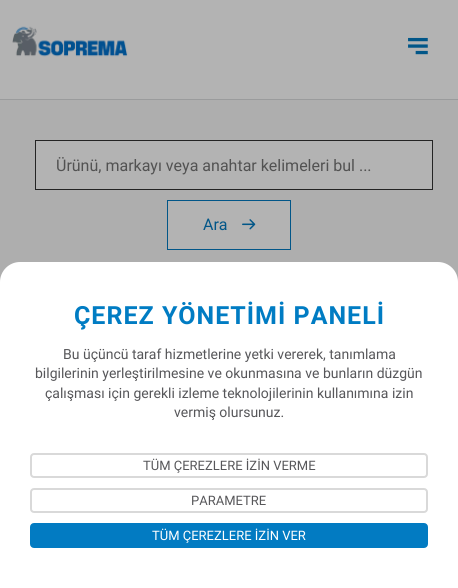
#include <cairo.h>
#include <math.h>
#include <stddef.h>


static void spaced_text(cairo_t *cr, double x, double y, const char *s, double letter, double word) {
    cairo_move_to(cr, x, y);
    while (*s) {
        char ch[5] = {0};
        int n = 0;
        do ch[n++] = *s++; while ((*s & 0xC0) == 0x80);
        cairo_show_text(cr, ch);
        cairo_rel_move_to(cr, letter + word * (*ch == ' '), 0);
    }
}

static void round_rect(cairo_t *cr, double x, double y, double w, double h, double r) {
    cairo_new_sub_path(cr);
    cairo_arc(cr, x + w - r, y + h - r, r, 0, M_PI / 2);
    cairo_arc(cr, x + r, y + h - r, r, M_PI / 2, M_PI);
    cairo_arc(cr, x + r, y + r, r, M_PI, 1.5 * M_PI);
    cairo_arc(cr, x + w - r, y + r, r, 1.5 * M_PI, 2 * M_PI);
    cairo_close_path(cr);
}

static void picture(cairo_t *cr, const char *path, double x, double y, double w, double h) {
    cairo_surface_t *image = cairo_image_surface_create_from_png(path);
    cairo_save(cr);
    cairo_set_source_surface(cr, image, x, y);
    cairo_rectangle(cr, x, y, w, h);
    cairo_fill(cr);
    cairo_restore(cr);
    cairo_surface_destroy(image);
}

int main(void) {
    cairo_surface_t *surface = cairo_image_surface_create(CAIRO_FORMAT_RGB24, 458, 588);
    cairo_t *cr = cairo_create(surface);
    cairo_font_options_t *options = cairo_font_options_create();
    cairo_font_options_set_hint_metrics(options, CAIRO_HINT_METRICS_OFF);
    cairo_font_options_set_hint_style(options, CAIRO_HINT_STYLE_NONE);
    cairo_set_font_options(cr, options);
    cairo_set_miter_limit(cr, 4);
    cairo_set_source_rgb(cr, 0.702, 0.702, 0.702);
    cairo_paint(cr);
    cairo_set_source_rgb(cr, 0.604, 0.608, 0.612);
    cairo_rectangle(cr, 0, 99, 458, 1);
    cairo_fill(cr);
    picture(cr, "img1.png", 12, 26, 116, 31);
    picture(cr, "img2.png", 408, 37, 20, 18);
    cairo_set_source_rgb(cr, 0.682, 0.682, 0.682);
    cairo_rectangle(cr, 0, 100, 458, 180);
    cairo_fill(cr);
    cairo_set_source_rgb(cr, 0.702, 0.702, 0.702);
    cairo_rectangle(cr, 35.5, 140.5, 397, 49);
    cairo_fill_preserve(cr);
    cairo_set_source_rgb(cr, 0.141, 0.141, 0.141);
    cairo_set_line_width(cr, 1);
    cairo_stroke(cr);
    cairo_select_font_face(cr, "Roboto", CAIRO_FONT_SLANT_NORMAL, CAIRO_FONT_WEIGHT_NORMAL);
    cairo_set_font_size(cr, 16);
    cairo_set_source_rgb(cr, 0.322, 0.322, 0.322);
    cairo_move_to(cr, 56, 171);
    cairo_show_text(cr, "Ürünü, markayı veya anahtar kelimeleri bul ...");
    cairo_set_source_rgb(cr, 0.702, 0.702, 0.702);
    cairo_rectangle(cr, 167.5, 200.5, 123, 49);
    cairo_fill_preserve(cr);
    cairo_set_source_rgb(cr, 0.004, 0.337, 0.533);
    cairo_stroke(cr);
    cairo_move_to(cr, 203, 230);
    cairo_show_text(cr, "Ara");
    picture(cr, "img3.png", 242, 219, 14, 11);
    cairo_set_source_rgb(cr, 1, 1, 1);
    cairo_new_path(cr);
    cairo_move_to(cr, 20, 262);
    cairo_line_to(cr, 438, 262);
    cairo_curve_to(cr, 449, 262, 458, 271, 458, 282);
    cairo_line_to(cr, 458, 588);
    cairo_line_to(cr, 0, 588);
    cairo_line_to(cr, 0, 282);
    cairo_curve_to(cr, 0, 271, 9, 262, 20, 262);
    cairo_close_path(cr);
    cairo_fill(cr);
    cairo_select_font_face(cr, "Roboto", CAIRO_FONT_SLANT_NORMAL, CAIRO_FONT_WEIGHT_BOLD);
    cairo_set_font_size(cr, 25);
    cairo_set_source_rgb(cr, 0, 0.486, 0.765);
    spaced_text(cr, 74, 324, "ÇEREZ YÖNETİMİ PANELİ", 1, 0);
    cairo_select_font_face(cr, "Roboto", CAIRO_FONT_SLANT_NORMAL, CAIRO_FONT_WEIGHT_NORMAL);
    cairo_set_font_size(cr, 14);
    cairo_set_source_rgb(cr, 0.341, 0.341, 0.353);
    cairo_move_to(cr, 63, 359);
    cairo_show_text(cr, "Bu üçüncü taraf hizmetlerine yetki vererek, tanımlama");
    cairo_move_to(cr, 35, 378);
    cairo_show_text(cr, "bilgilerinin yerleştirilmesine ve okunmasına ve bunların düzgün");
    cairo_move_to(cr, 45, 398);
    cairo_show_text(cr, "çalışması için gerekli izleme teknolojilerinin kullanımına izin");
    cairo_move_to(cr, 174, 417);
    cairo_show_text(cr, "vermiş olursunuz.");
    round_rect(cr, 31, 454, 396, 23, 3);
    cairo_set_source_rgb(cr, 0.851, 0.851, 0.851);
    cairo_set_line_width(cr, 2);
    cairo_stroke(cr);
    cairo_set_font_size(cr, 13);
    cairo_set_source_rgb(cr, 0.341, 0.341, 0.353);
    cairo_move_to(cr, 143, 470);
    cairo_show_text(cr, "TÜM ÇEREZLERE İZİN VERME");
    round_rect(cr, 31, 489, 396, 23, 3);
    cairo_set_source_rgb(cr, 0.851, 0.851, 0.851);
    cairo_stroke(cr);
    cairo_set_source_rgb(cr, 0.341, 0.341, 0.353);
    cairo_move_to(cr, 191, 505);
    cairo_show_text(cr, "PARAMETRE");
    cairo_set_source_rgb(cr, 0.008, 0.482, 0.761);
    round_rect(cr, 31, 524, 396, 23, 3);
    cairo_fill_preserve(cr);
    cairo_stroke(cr);
    cairo_set_source_rgb(cr, 1, 1, 1);
    cairo_move_to(cr, 152, 540);
    cairo_show_text(cr, "TÜM ÇEREZLERE İZİN VER");
    cairo_surface_write_to_png(surface, "page.png");
    cairo_font_options_destroy(options);
    cairo_destroy(cr);
    cairo_surface_destroy(surface);
    return 0;
}
